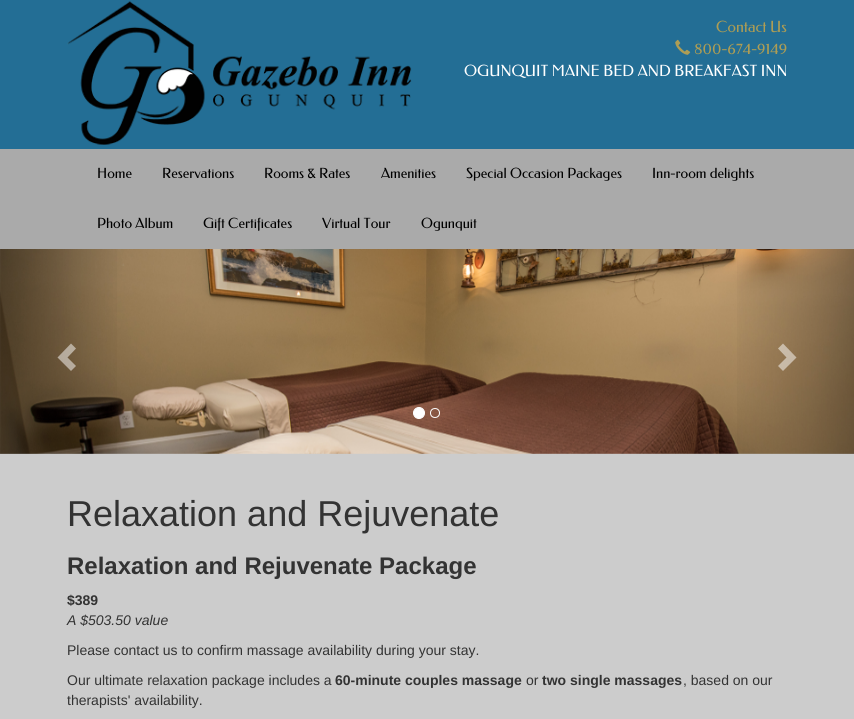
import math
import cairocffi as cairo

surface = cairo.ImageSurface(cairo.FORMAT_RGB24, 854, 719)
cr = cairo.Context(surface)
options = cairo.FontOptions()
options.set_hint_metrics(cairo.HINT_METRICS_OFF)
options.set_hint_style(cairo.HINT_STYLE_NONE)
cr.set_font_options(options)
cr.set_miter_limit(4)


def use_color(code):
    cr.set_source_rgb(*(v / 255 for v in bytes.fromhex(code[-6:])))


def picture(path, x, y, w, h):
    cr.save()
    cr.set_source_surface(cairo.ImageSurface.create_from_png(path), x, y)
    cr.rectangle(x, y, w, h)
    cr.fill()
    cr.restore()


use_color("#cccccc")
cr.paint()
use_color("#236e95")
cr.rectangle(0, 0, 854, 149)
cr.fill()
picture("img1.png", 67, 1, 345, 144)
cr.select_font_face("Federo")
cr.set_font_size(15.4)
use_color("#ae9d54")
cr.move_to(716, 32)
cr.show_text("Contact Us")
picture("img2.png", 675, 39, 16, 16)
cr.move_to(694, 54)
cr.show_text("800-674-9149")
use_color("#ffffff")
cr.move_to(464, 76)
cr.show_text("OGUNQUIT MAINE BED AND BREAKFAST INN")
use_color("#aaaaaa")
cr.rectangle(0, 149, 854, 100)
cr.fill()
cr.set_font_size(14)
use_color("#000000")
cr.move_to(97, 178)
cr.show_text("Home")
cr.move_to(162, 178)
cr.show_text("Reservations")
cr.move_to(264, 178)
cr.show_text("Rooms & Rates")
cr.move_to(381, 178)
cr.show_text("Amenities")
cr.move_to(466, 178)
cr.show_text("Special Occasion Packages")
cr.move_to(652, 178)
cr.show_text("Inn-room delights")
cr.move_to(97, 228)
cr.show_text("Photo Album")
cr.move_to(203, 228)
cr.show_text("Gift Certificates")
cr.move_to(322, 228)
cr.show_text("Virtual Tour")
cr.move_to(421, 228)
cr.show_text("Ogunquit")
picture("img3.png", 0, 249, 854, 205)
gradient = cairo.LinearGradient(0, 352, 128, 352)
gradient.add_color_stop_rgba(0, 0, 0, 0, 0.25)
gradient.add_color_stop_rgba(1, 0, 0, 0, 0)
cr.set_source(gradient)
cr.rectangle(0, 249, 117, 205)
cr.fill()
cr.set_source_rgba(1, 1, 1, 0.5)
cr.new_path()
cr.move_to(76, 348.5)
cr.line_to(67.5, 357.5)
cr.line_to(76, 366)
cr.line_to(71, 371)
cr.line_to(57.5, 357.5)
cr.line_to(71, 343.5)
cr.close_path()
cr.fill()
use_color("#ffffff")
cr.arc(419, 413, 5.5, 0, 2 * math.pi)
cr.fill_preserve()
cr.set_line_width(1)
cr.stroke()
cr.arc(435, 413, 4.5, 0, 2 * math.pi)
cr.stroke()
gradient = cairo.LinearGradient(726, 352, 854, 352)
gradient.add_color_stop_rgba(0, 0, 0, 0, 0)
gradient.add_color_stop_rgba(1, 0, 0, 0, 0.25)
cr.set_source(gradient)
cr.rectangle(737, 249, 117, 205)
cr.fill()
cr.set_source_rgba(1, 1, 1, 0.5)
cr.new_path()
cr.move_to(796.5, 357.5)
cr.line_to(783, 371)
cr.line_to(778, 366)
cr.line_to(786.5, 357.5)
cr.line_to(778, 348.5)
cr.line_to(783, 343.5)
cr.close_path()
cr.fill()
cr.select_font_face("Liberation Sans")
cr.set_font_size(36)
use_color("#333333")
cr.move_to(67, 526)
cr.show_text("Relaxation and Rejuvenate")
cr.select_font_face("Liberation Sans", cairo.FONT_SLANT_NORMAL, cairo.FONT_WEIGHT_BOLD)
cr.set_font_size(24)
cr.move_to(67, 574)
cr.show_text("Relaxation and Rejuvenate Package")
cr.set_font_size(14)
cr.move_to(67, 605)
cr.show_text("$389")
cr.select_font_face("Liberation Sans", cairo.FONT_SLANT_ITALIC)
cr.move_to(67, 625)
cr.show_text("A $503.50 value")
cr.select_font_face("Liberation Sans")
cr.move_to(67, 655)
cr.show_text("Please contact us to confirm massage availability during your stay.")
cr.move_to(67, 685)
cr.show_text("Our ultimate relaxation package includes a")
cr.select_font_face("Liberation Sans", cairo.FONT_SLANT_NORMAL, cairo.FONT_WEIGHT_BOLD)
cr.move_to(335, 685)
cr.show_text("60-minute couples massage")
cr.select_font_face("Liberation Sans")
cr.move_to(526, 685)
cr.show_text("or")
cr.select_font_face("Liberation Sans", cairo.FONT_SLANT_NORMAL, cairo.FONT_WEIGHT_BOLD)
cr.move_to(542, 685)
cr.show_text("two single massages")
cr.select_font_face("Liberation Sans")
cr.move_to(683, 685)
cr.show_text(", based on our")
cr.move_to(67, 705)
cr.show_text("therapists' availability.")
surface.write_to_png("result.png")
